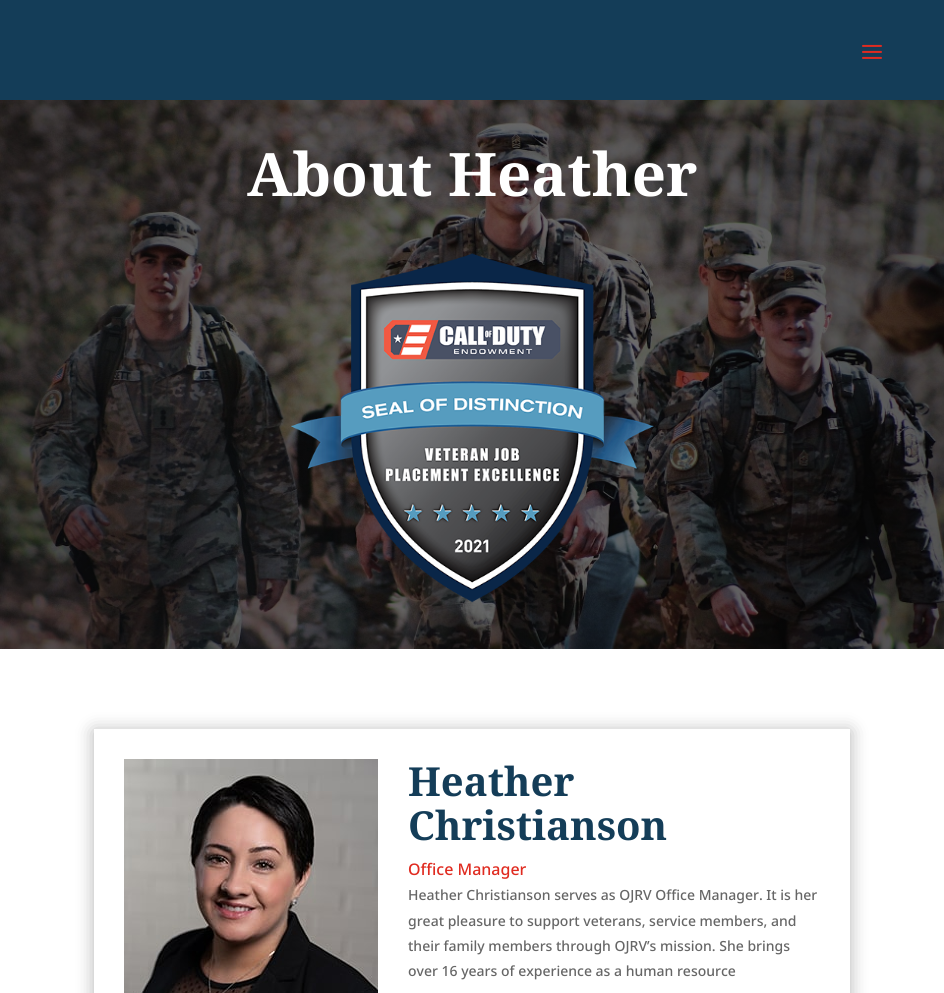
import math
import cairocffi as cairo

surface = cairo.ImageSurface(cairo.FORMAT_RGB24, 944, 993)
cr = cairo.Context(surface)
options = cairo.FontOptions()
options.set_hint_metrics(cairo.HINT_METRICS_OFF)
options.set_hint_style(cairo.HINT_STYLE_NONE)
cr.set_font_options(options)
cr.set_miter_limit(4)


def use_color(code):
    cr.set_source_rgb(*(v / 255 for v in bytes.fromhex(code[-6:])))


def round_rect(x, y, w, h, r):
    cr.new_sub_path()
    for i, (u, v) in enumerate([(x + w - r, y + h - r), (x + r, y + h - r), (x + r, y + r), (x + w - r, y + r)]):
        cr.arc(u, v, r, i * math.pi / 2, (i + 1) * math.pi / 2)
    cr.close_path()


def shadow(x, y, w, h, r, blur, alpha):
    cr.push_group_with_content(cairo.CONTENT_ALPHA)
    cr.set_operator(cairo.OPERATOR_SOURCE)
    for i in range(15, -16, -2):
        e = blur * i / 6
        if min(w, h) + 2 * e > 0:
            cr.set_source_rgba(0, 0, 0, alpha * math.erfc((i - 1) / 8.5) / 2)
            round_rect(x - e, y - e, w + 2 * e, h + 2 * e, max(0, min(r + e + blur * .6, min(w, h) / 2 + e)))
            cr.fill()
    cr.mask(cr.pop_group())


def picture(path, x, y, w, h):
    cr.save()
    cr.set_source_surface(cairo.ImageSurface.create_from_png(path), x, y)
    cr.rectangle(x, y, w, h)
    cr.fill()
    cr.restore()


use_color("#ffffff")
cr.paint()
use_color("#143d58")
cr.rectangle(0, 0, 944, 100)
cr.fill()
picture("img1.png", 862, 44, 20, 15)
picture("img2.png", 0, 100, 944, 549)
cr.select_font_face("Noto Serif", cairo.FONT_SLANT_NORMAL, cairo.FONT_WEIGHT_BOLD)
cr.set_font_size(60)
use_color("#ffffff")
cr.move_to(247, 196)
cr.show_text("About Heather")
picture("img3.png", 291, 253, 363, 350)
cr.save()
cr.set_fill_rule(cairo.FILL_RULE_EVEN_ODD)
cr.new_path()
cr.move_to(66, 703)
cr.line_to(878, 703)
cr.line_to(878, 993)
cr.line_to(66, 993)
cr.close_path()
cr.move_to(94, 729)
cr.line_to(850, 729)
cr.line_to(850, 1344)
cr.line_to(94, 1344)
cr.close_path()
cr.clip()
use_color("#000000")
shadow(94, 731, 756, 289, 0, 9, 0.3)
cr.restore()
picture("img4.png", 124, 759, 254, 234)
cr.set_font_size(40)
use_color("#143d58")
cr.move_to(408, 796)
cr.show_text("Heather")
cr.move_to(408, 840)
cr.show_text("Christianson")
cr.select_font_face("Noto Sans Medium")
cr.set_font_size(16)
use_color("#e02b20")
cr.move_to(408, 875)
cr.show_text("Office Manager")
cr.set_font_size(14)
use_color("#666666")
cr.move_to(408, 900)
cr.show_text("Heather Christianson serves as OJRV Office Manager. It is her")
cr.move_to(408, 926)
cr.show_text("great pleasure to support veterans, service members, and")
cr.move_to(408, 951)
cr.show_text("their family members through OJRV’s mission. She brings")
cr.move_to(408, 976)
cr.show_text("over 16 years of experience as a human resource")
surface.write_to_png("result.png")
